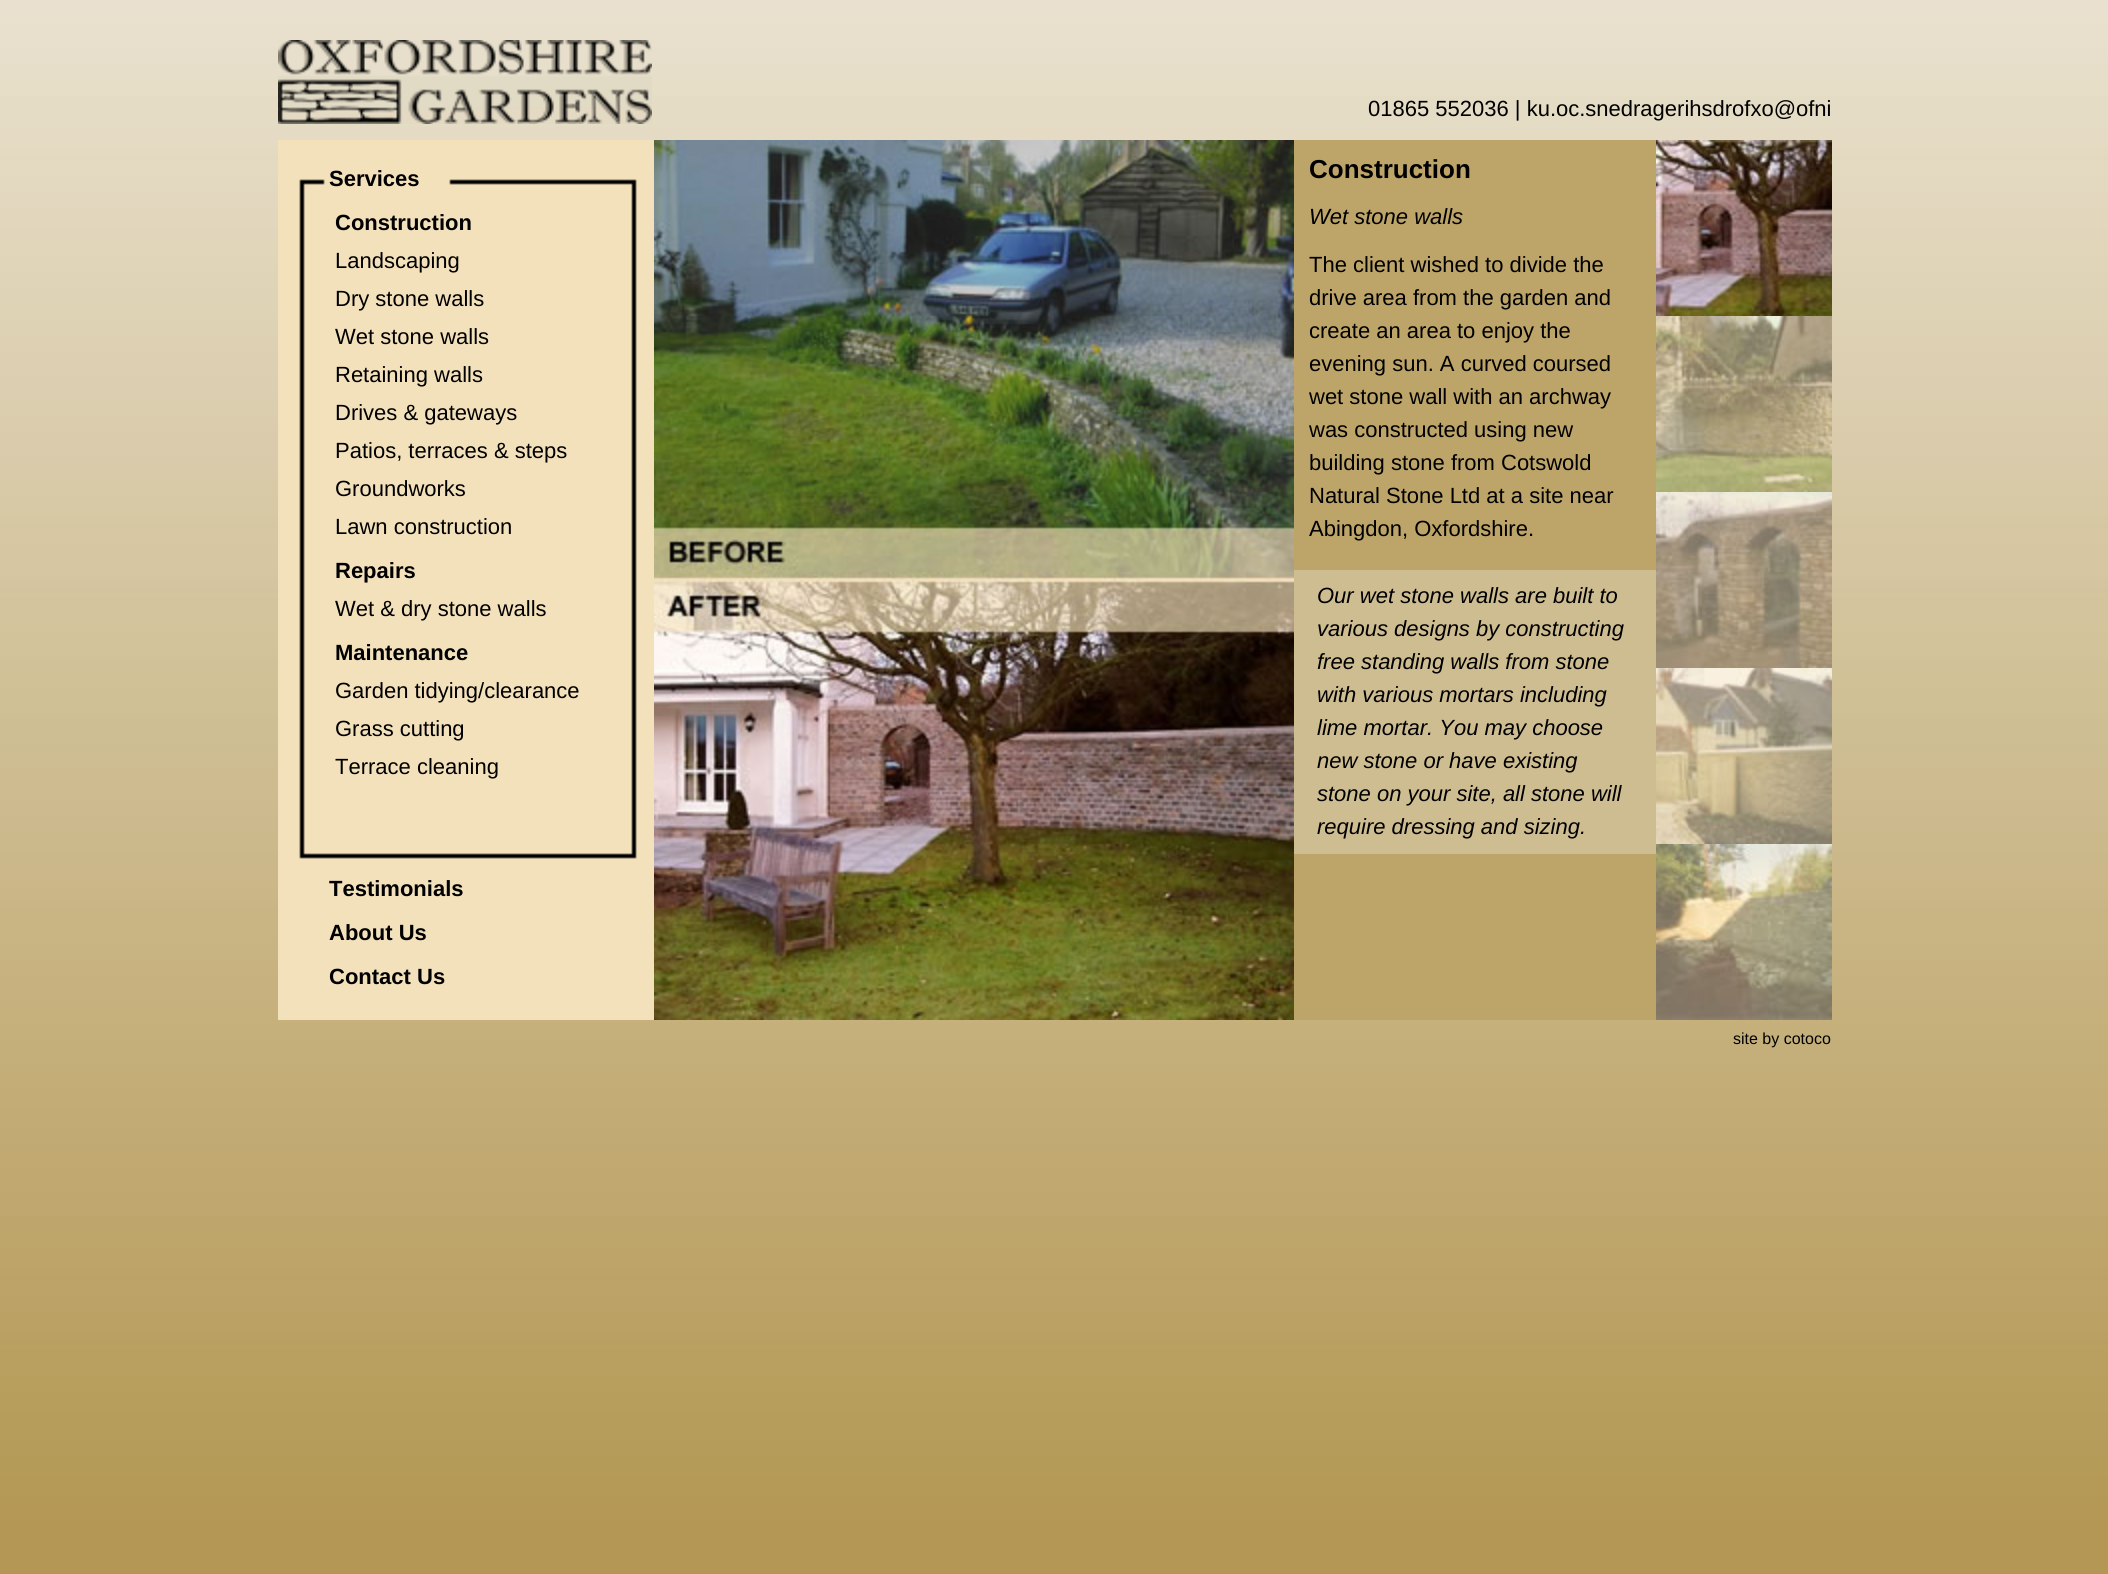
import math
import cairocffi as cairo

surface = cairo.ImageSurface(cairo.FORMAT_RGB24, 2108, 1574)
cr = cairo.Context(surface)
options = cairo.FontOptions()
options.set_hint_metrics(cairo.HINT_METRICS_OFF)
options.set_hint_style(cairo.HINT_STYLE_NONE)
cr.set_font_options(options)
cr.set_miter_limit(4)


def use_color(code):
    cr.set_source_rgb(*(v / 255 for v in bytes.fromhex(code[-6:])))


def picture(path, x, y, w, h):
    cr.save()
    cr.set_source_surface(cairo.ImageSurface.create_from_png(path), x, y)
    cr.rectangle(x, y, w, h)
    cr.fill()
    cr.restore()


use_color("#ffffff")
cr.paint()
picture("img1.png", 0, 0, 2108, 1574)
picture("img2.png", 278, 40, 374, 84)
cr.select_font_face("Liberation Sans")
cr.set_font_size(22)
use_color("#000000")
cr.move_to(1368, 116)
cr.show_text("01865 552036 | ku.oc.snedragerihsdrofxo@ofni")
use_color("#f3e1bb")
cr.rectangle(278, 140, 376, 880)
cr.fill()
picture("img3.png", 299, 179, 338, 680)
cr.select_font_face("Liberation Sans", cairo.FONT_SLANT_NORMAL, cairo.FONT_WEIGHT_BOLD)
use_color("#000000")
cr.move_to(329, 186)
cr.show_text("Services")
cr.move_to(335, 230)
cr.show_text("Construction")
cr.select_font_face("Liberation Sans")
cr.move_to(335, 268)
cr.show_text("Landscaping")
cr.move_to(335, 306)
cr.show_text("Dry stone walls")
cr.move_to(335, 344)
cr.show_text("Wet stone walls")
cr.move_to(335, 382)
cr.show_text("Retaining walls")
cr.move_to(335, 420)
cr.show_text("Drives & gateways")
cr.move_to(335, 458)
cr.show_text("Patios, terraces & steps")
cr.move_to(335, 496)
cr.show_text("Groundworks")
cr.move_to(335, 534)
cr.show_text("Lawn construction")
cr.select_font_face("Liberation Sans", cairo.FONT_SLANT_NORMAL, cairo.FONT_WEIGHT_BOLD)
cr.move_to(335, 578)
cr.show_text("Repairs")
cr.select_font_face("Liberation Sans")
cr.move_to(335, 616)
cr.show_text("Wet & dry stone walls")
cr.select_font_face("Liberation Sans", cairo.FONT_SLANT_NORMAL, cairo.FONT_WEIGHT_BOLD)
cr.move_to(335, 660)
cr.show_text("Maintenance")
cr.select_font_face("Liberation Sans")
cr.move_to(335, 698)
cr.show_text("Garden tidying/clearance")
cr.move_to(335, 736)
cr.show_text("Grass cutting")
cr.move_to(335, 774)
cr.show_text("Terrace cleaning")
cr.select_font_face("Liberation Sans", cairo.FONT_SLANT_NORMAL, cairo.FONT_WEIGHT_BOLD)
cr.move_to(329, 896)
cr.show_text("Testimonials")
cr.move_to(329, 940)
cr.show_text("About Us")
cr.move_to(329, 984)
cr.show_text("Contact Us")
picture("img4.png", 654, 140, 640, 880)
use_color("#bda468")
cr.rectangle(1294, 140, 362, 880)
cr.fill()
cr.set_font_size(26)
use_color("#000000")
cr.move_to(1309, 178)
cr.show_text("Construction")
cr.select_font_face("Liberation Sans", cairo.FONT_SLANT_ITALIC)
cr.set_font_size(22)
cr.move_to(1309, 224)
cr.show_text("Wet stone walls")
cr.select_font_face("Liberation Sans")
cr.move_to(1309, 272)
cr.show_text("The client wished to divide the")
cr.move_to(1309, 305)
cr.show_text("drive area from the garden and")
cr.move_to(1309, 338)
cr.show_text("create an area to enjoy the")
cr.move_to(1309, 371)
cr.show_text("evening sun. A curved coursed")
cr.move_to(1309, 404)
cr.show_text("wet stone wall with an archway")
cr.move_to(1309, 437)
cr.show_text("was constructed using new")
cr.move_to(1309, 470)
cr.show_text("building stone from Cotswold")
cr.move_to(1309, 503)
cr.show_text("Natural Stone Ltd at a site near")
cr.move_to(1309, 536)
cr.show_text("Abingdon, Oxfordshire.")
use_color("#cfbd92")
cr.rectangle(1294, 570, 362, 284)
cr.fill()
cr.select_font_face("Liberation Sans", cairo.FONT_SLANT_ITALIC)
use_color("#000000")
cr.move_to(1317, 603)
cr.show_text("Our wet stone walls are built to")
cr.move_to(1317, 636)
cr.show_text("various designs by constructing")
cr.move_to(1317, 669)
cr.show_text("free standing walls from stone")
cr.move_to(1317, 702)
cr.show_text("with various mortars including")
cr.move_to(1317, 735)
cr.show_text("lime mortar. You may choose")
cr.move_to(1317, 768)
cr.show_text("new stone or have existing")
cr.move_to(1317, 801)
cr.show_text("stone on your site, all stone will")
cr.move_to(1317, 834)
cr.show_text("require dressing and sizing.")
picture("img5.png", 1656, 140, 176, 176)
picture("img6.png", 1656, 316, 176, 176)
picture("img7.png", 1656, 492, 176, 176)
picture("img8.png", 1656, 668, 176, 176)
picture("img9.png", 1656, 844, 176, 176)
cr.select_font_face("Liberation Sans")
cr.set_font_size(16)
cr.move_to(1733, 1044)
cr.show_text("site by cotoco")
surface.write_to_png("result.png")
